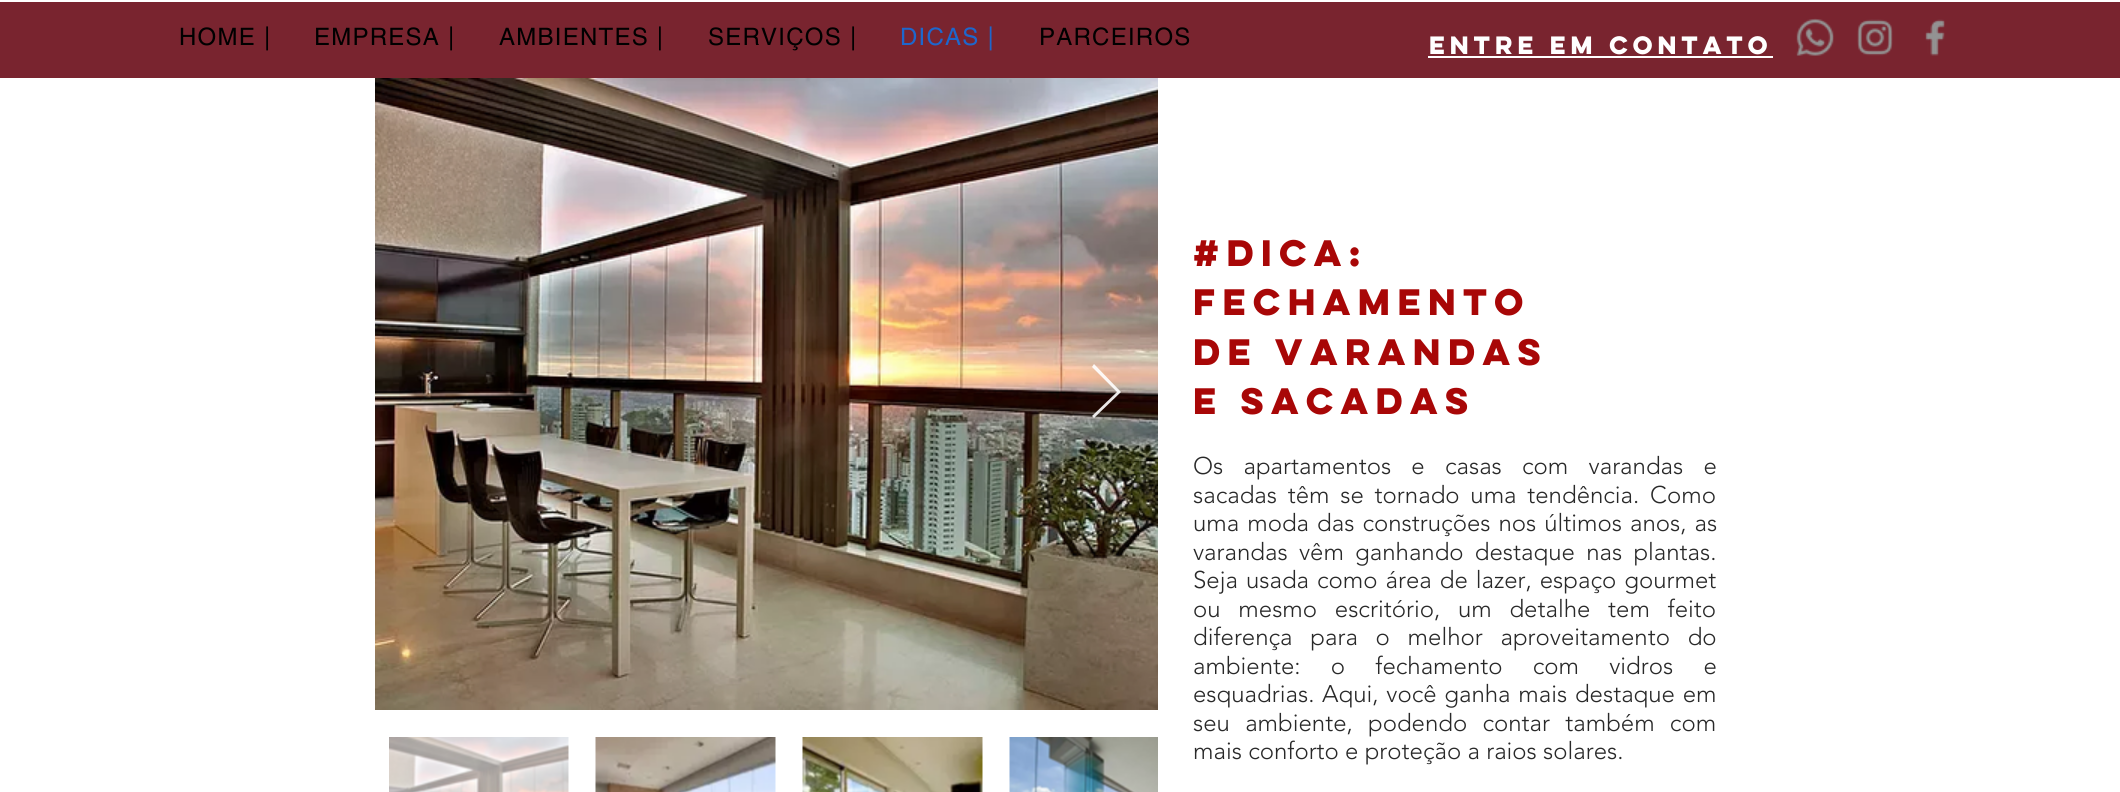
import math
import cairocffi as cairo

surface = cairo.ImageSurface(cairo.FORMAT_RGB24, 2120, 792)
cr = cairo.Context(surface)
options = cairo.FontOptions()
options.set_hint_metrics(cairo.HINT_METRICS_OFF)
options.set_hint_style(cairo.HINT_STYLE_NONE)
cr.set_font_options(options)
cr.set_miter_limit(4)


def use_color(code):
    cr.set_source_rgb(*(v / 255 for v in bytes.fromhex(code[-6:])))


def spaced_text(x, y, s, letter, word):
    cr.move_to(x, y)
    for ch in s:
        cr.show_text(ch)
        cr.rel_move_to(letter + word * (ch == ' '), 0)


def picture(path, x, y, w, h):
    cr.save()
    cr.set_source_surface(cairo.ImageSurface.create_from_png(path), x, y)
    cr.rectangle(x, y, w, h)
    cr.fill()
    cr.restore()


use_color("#ffffff")
cr.paint()
use_color("#79242f")
cr.rectangle(0, 2, 2120, 76)
cr.fill()
cr.select_font_face("helvetica")
cr.set_font_size(24)
use_color("#000000")
spaced_text(179, 45, "HOME |", 1.25, 0)
spaced_text(314, 45, "EMPRESA |", 1.25, 0)
spaced_text(499, 45, "AMBIENTES |", 1.25, 0)
spaced_text(708, 45, "SERVIÇOS |", 1.25, 0)
use_color("#1d67cd")
spaced_text(900, 45, "DICAS |", 1.25, 0)
use_color("#000000")
spaced_text(1039, 45, "PARCEIROS", 1.25, 0)
cr.select_font_face("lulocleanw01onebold", cairo.FONT_SLANT_NORMAL, cairo.FONT_WEIGHT_BOLD)
cr.set_font_size(22.5)
use_color("#ffffff")
cr.move_to(1429, 54)
cr.show_text("eNTRE EM CONTATO")
cr.rectangle(1428, 56, 345, 2)
cr.fill()
picture("img1.png", 1796, 18, 38, 38)
picture("img2.png", 1857, 19, 36, 37)
picture("img3.png", 1925, 19, 20, 37)
picture("img4.png", 375, 78, 783, 632)
cr.set_source_rgba(1, 1, 1, 0.9)
cr.new_path()
cr.move_to(1092, 367)
cr.line_to(1094, 364)
cr.line_to(1121, 392)
cr.line_to(1094, 418)
cr.line_to(1092, 416)
cr.line_to(1117, 392)
cr.close_path()
cr.fill()
picture("img5.png", 389, 737, 180, 55)
picture("img6.png", 595, 737, 181, 55)
picture("img7.png", 802, 737, 181, 55)
picture("img8.png", 1009, 737, 149, 55)
cr.set_font_size(33)
use_color("#a80707")
cr.move_to(1193, 266)
cr.show_text("#DIca:")
cr.move_to(1193, 315)
cr.show_text("FECHAMENTO")
cr.move_to(1193, 365)
cr.show_text("DE VARANDAS")
cr.move_to(1193, 414)
cr.show_text("E SACADAS")
cr.select_font_face("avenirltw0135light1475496 Light")
cr.set_font_size(24)
use_color("#292929")
spaced_text(1193, 474, "Os apartamentos e casas com varandas e", 0, 14)
spaced_text(1193, 503, "sacadas têm se tornado uma tendência. Como", 0, 4.5)
spaced_text(1193, 531, "uma moda das construções nos últimos anos, as", 0, 1.75)
spaced_text(1193, 560, "varandas vêm ganhando destaque nas plantas.", 0, 5)
spaced_text(1193, 588, "Seja usada como área de lazer, espaço gourmet", 0, 1.75)
spaced_text(1193, 617, "ou mesmo escritório, um detalhe tem feito", 0, 11.5)
spaced_text(1193, 645, "diferença para o melhor aproveitamento do", 0, 11.5)
spaced_text(1193, 674, "ambiente: o fechamento com vidros e", 0, 24)
spaced_text(1193, 702, "esquadrias. Aqui, você ganha mais destaque em", 0, 1.5)
spaced_text(1193, 731, "seu ambiente, podendo contar também com", 0, 9)
cr.move_to(1193, 759)
cr.show_text("mais conforto e proteção a raios solares.")
surface.write_to_png("result.png")
